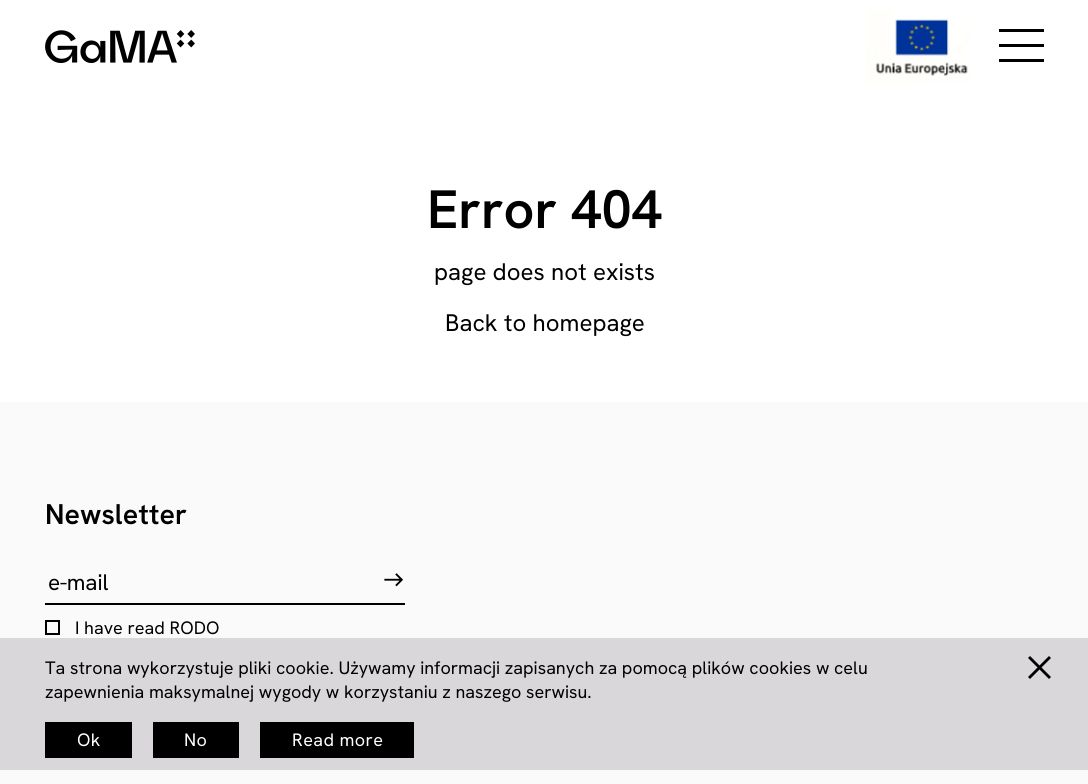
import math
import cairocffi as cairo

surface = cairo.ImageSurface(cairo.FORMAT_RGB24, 1088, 784)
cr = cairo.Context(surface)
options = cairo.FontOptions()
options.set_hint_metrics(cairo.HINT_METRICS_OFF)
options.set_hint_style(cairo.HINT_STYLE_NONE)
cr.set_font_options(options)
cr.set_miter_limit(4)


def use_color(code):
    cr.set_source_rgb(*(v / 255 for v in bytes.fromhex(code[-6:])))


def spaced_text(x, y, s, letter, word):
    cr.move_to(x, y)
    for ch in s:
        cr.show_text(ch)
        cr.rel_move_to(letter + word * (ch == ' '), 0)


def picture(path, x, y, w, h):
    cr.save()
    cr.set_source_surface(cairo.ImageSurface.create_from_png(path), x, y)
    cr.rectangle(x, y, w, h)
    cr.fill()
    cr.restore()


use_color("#ffffff")
cr.paint()
picture("img1.png", 45, 30, 150, 33)
picture("img2.png", 866, 10, 103, 74)
use_color("#000000")
cr.rectangle(999, 44, 45, 3)
cr.fill()
cr.rectangle(999, 29, 45, 3)
cr.fill()
cr.rectangle(999, 59, 45, 3)
cr.fill()
cr.select_font_face("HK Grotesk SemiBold")
cr.set_font_size(54)
cr.move_to(427, 228)
cr.show_text("Error 404")
cr.select_font_face("HK Grotesk")
cr.set_font_size(24)
cr.move_to(434, 280)
cr.show_text("page does not exists")
cr.move_to(445, 331)
cr.show_text("Back to homepage")
use_color("#fafafa")
cr.rectangle(0, 402, 1088, 382)
cr.fill()
cr.select_font_face("HK Grotesk SemiBold")
cr.set_font_size(28.5)
use_color("#000000")
cr.move_to(45, 524)
cr.show_text("Newsletter")
cr.rectangle(45, 603, 360, 2)
cr.fill()
cr.select_font_face("HK Grotesk")
cr.set_font_size(22.5)
cr.move_to(48, 590)
cr.show_text("e-mail")
picture("img3.png", 384, 573, 19, 14)
cr.rectangle(46, 621, 13, 13)
cr.stroke()
cr.set_font_size(18)
cr.move_to(75, 634)
cr.show_text("I have read RODO")
use_color("#dad7db")
cr.rectangle(0, 638, 1088, 132)
cr.fill()
use_color("#000000")
cr.move_to(45, 674)
cr.show_text("Ta strona wykorzystuje pliki cookie. Używamy informacji zapisanych za pomocą plików cookies w celu")
cr.move_to(45, 698)
cr.show_text("zapewnienia maksymalnej wygody w korzystaniu z naszego serwisu.")
cr.new_path()
cr.move_to(1049, 656)
cr.line_to(1051, 658)
cr.line_to(1030, 679)
cr.line_to(1028, 677)
cr.close_path()
cr.fill()
cr.new_path()
cr.move_to(1028, 658)
cr.line_to(1030, 656)
cr.line_to(1051, 677)
cr.line_to(1049, 679)
cr.close_path()
cr.fill()
cr.rectangle(45, 722, 87, 36)
cr.fill()
use_color("#ffffff")
spaced_text(77, 746, "Ok", 0.4, 0)
use_color("#000000")
cr.rectangle(153, 722, 86, 36)
cr.fill()
use_color("#ffffff")
spaced_text(184, 746, "No", 0.4, 0)
use_color("#000000")
cr.rectangle(260, 722, 154, 36)
cr.fill()
use_color("#ffffff")
spaced_text(292, 746, "Read more", 0.4, 0)
surface.write_to_png("result.png")
